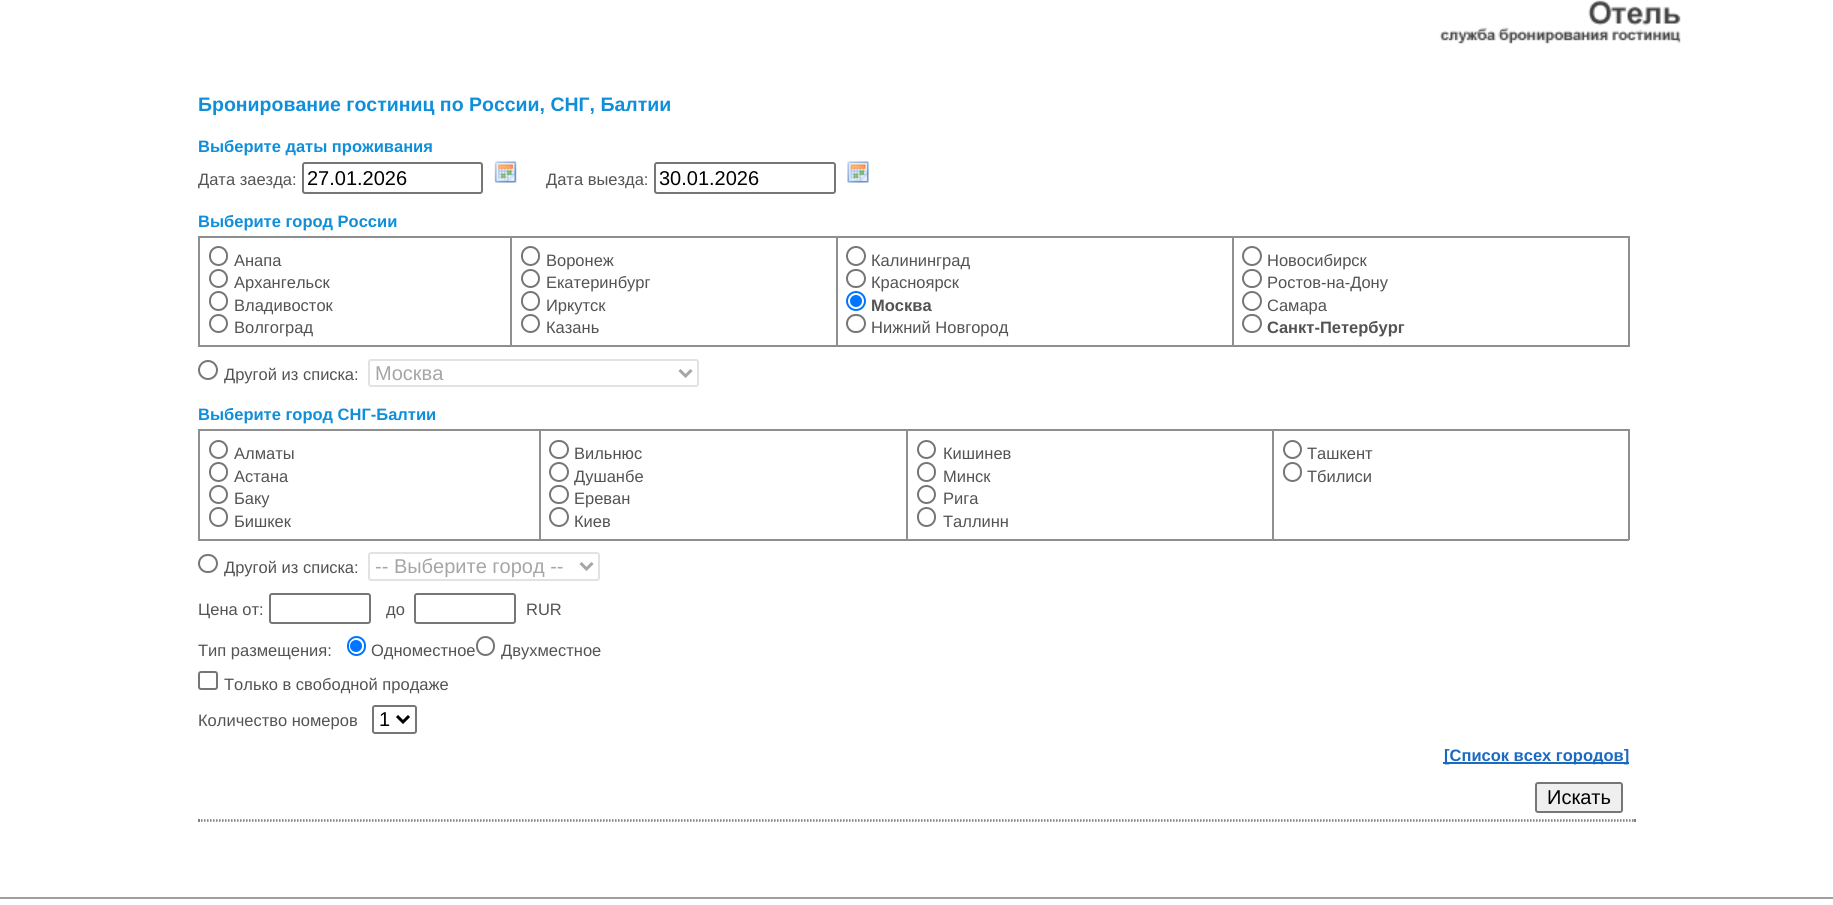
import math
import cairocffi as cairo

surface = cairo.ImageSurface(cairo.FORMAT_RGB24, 1833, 905)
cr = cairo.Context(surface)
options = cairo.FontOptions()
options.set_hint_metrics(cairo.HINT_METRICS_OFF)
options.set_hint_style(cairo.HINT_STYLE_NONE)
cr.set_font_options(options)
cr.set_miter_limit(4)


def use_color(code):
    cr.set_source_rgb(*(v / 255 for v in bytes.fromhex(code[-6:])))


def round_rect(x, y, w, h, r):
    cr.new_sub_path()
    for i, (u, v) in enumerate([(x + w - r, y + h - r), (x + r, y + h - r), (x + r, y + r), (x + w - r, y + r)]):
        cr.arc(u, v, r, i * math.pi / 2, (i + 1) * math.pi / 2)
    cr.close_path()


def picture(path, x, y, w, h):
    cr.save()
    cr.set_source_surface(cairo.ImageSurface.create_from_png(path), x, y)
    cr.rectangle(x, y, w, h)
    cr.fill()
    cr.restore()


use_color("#ffffff")
cr.paint()
picture("img1.png", 1439, 0, 242, 44)
cr.select_font_face("Liberation Sans", cairo.FONT_SLANT_NORMAL, cairo.FONT_WEIGHT_BOLD)
cr.set_font_size(19.5)
use_color("#0f8eda")
cr.move_to(198, 111)
cr.show_text("Бронирование гостиниц по России, СНГ, Балтии")
cr.set_font_size(16.5)
cr.move_to(198, 152)
cr.show_text("Выберите даты проживания")
cr.select_font_face("Liberation Sans")
use_color("#525353")
cr.move_to(198, 185)
cr.show_text("Дата заезда:")
round_rect(303, 163, 179, 30, 2)
use_color("#767676")
cr.stroke()
cr.set_font_size(20)
use_color("#000000")
cr.move_to(307, 185)
cr.show_text("27.01.2026")
picture("img2.png", 494, 161, 23, 22)
cr.set_font_size(16.5)
use_color("#525353")
cr.move_to(546, 185)
cr.show_text("Дата выезда:")
round_rect(655, 163, 180, 30, 2)
use_color("#767676")
cr.stroke()
cr.set_font_size(20)
use_color("#000000")
cr.move_to(659, 185)
cr.show_text("30.01.2026")
picture("img3.png", 847, 161, 22, 22)
cr.select_font_face("Liberation Sans", cairo.FONT_SLANT_NORMAL, cairo.FONT_WEIGHT_BOLD)
cr.set_font_size(16.5)
use_color("#0f8eda")
cr.move_to(198, 227)
cr.show_text("Выберите город России")
use_color("#8f8f8f")
cr.rectangle(1232, 236, 397, 2)
cr.fill()
cr.rectangle(1628, 236, 2, 111)
cr.fill()
cr.rectangle(1232, 345, 397, 2)
cr.fill()
cr.rectangle(1232, 236, 2, 111)
cr.fill()
cr.rectangle(836, 236, 397, 2)
cr.fill()
cr.rectangle(836, 345, 397, 2)
cr.fill()
cr.rectangle(836, 236, 2, 111)
cr.fill()
cr.rectangle(510, 236, 327, 2)
cr.fill()
cr.rectangle(510, 345, 327, 2)
cr.fill()
cr.rectangle(510, 236, 2, 111)
cr.fill()
cr.rectangle(198, 236, 314, 2)
cr.fill()
cr.rectangle(198, 345, 314, 2)
cr.fill()
cr.rectangle(198, 236, 2, 111)
cr.fill()
round_rect(210, 247, 17, 18, 8.5)
use_color("#767676")
cr.stroke()
cr.select_font_face("Liberation Sans")
use_color("#525353")
cr.move_to(234, 266)
cr.show_text("Анапа")
cr.new_path()
cr.arc(218.5, 278.5, 8.5, 0, 2 * math.pi)
use_color("#767676")
cr.stroke()
use_color("#525353")
cr.move_to(234, 288)
cr.show_text("Архангельск")
round_rect(210, 292, 17, 18, 8.5)
use_color("#767676")
cr.stroke()
use_color("#525353")
cr.move_to(234, 311)
cr.show_text("Владивосток")
cr.new_path()
cr.arc(218.5, 323.5, 8.5, 0, 2 * math.pi)
use_color("#767676")
cr.stroke()
use_color("#525353")
cr.move_to(234, 333)
cr.show_text("Волгоград")
round_rect(522, 247, 17, 18, 8.5)
use_color("#767676")
cr.stroke()
use_color("#525353")
cr.move_to(546, 266)
cr.show_text("Воронеж")
cr.new_path()
cr.arc(530.5, 278.5, 8.5, 0, 2 * math.pi)
use_color("#767676")
cr.stroke()
use_color("#525353")
cr.move_to(546, 288)
cr.show_text("Екатеринбург")
round_rect(522, 292, 17, 18, 8.5)
use_color("#767676")
cr.stroke()
use_color("#525353")
cr.move_to(546, 311)
cr.show_text("Иркутск")
cr.new_path()
cr.arc(530.5, 323.5, 8.5, 0, 2 * math.pi)
use_color("#767676")
cr.stroke()
use_color("#525353")
cr.move_to(546, 333)
cr.show_text("Казань")
cr.new_path()
cr.arc(856, 256, 9, 0, 2 * math.pi)
use_color("#767676")
cr.stroke()
use_color("#525353")
cr.move_to(871, 266)
cr.show_text("Калининград")
round_rect(847, 270, 18, 17, 8.5)
use_color("#767676")
cr.stroke()
use_color("#525353")
cr.move_to(871, 288)
cr.show_text("Красноярск")
cr.new_path()
cr.arc(856, 301, 9, 0, 2 * math.pi)
use_color("#0075ff")
cr.stroke()
cr.arc(856, 301, 6, 0, 2 * math.pi)
cr.fill()
cr.select_font_face("Liberation Sans", cairo.FONT_SLANT_NORMAL, cairo.FONT_WEIGHT_BOLD)
use_color("#525353")
cr.move_to(871, 311)
cr.show_text("Москва")
round_rect(847, 315, 18, 17, 8.5)
use_color("#767676")
cr.stroke()
cr.select_font_face("Liberation Sans")
use_color("#525353")
cr.move_to(871, 333)
cr.show_text("Нижний Новгород")
cr.new_path()
cr.arc(1252, 256, 9, 0, 2 * math.pi)
use_color("#767676")
cr.stroke()
use_color("#525353")
cr.move_to(1267, 266)
cr.show_text("Новосибирск")
round_rect(1243, 270, 18, 17, 8.5)
use_color("#767676")
cr.stroke()
use_color("#525353")
cr.move_to(1267, 288)
cr.show_text("Ростов-на-Дону")
cr.new_path()
cr.arc(1252, 301, 9, 0, 2 * math.pi)
use_color("#767676")
cr.stroke()
use_color("#525353")
cr.move_to(1267, 311)
cr.show_text("Самара")
round_rect(1243, 315, 18, 17, 8.5)
use_color("#767676")
cr.stroke()
cr.select_font_face("Liberation Sans", cairo.FONT_SLANT_NORMAL, cairo.FONT_WEIGHT_BOLD)
use_color("#525353")
cr.move_to(1267, 333)
cr.show_text("Санкт-Петербург")
cr.new_path()
cr.arc(208, 370, 9, 0, 2 * math.pi)
use_color("#767676")
cr.stroke()
cr.select_font_face("Liberation Sans")
use_color("#525353")
cr.move_to(224, 380)
cr.show_text("Другой из списка:")
round_rect(369, 360, 329, 26, 2)
use_color("#e2e2e2")
cr.stroke()
cr.new_path()
cr.move_to(679.5, 370)
cr.line_to(685.5, 376)
cr.line_to(691.5, 370)
use_color("#a6a6a6")
cr.set_line_width(3)
cr.stroke()
cr.set_font_size(20)
cr.move_to(375, 380)
cr.show_text("Москва")
cr.select_font_face("Liberation Sans", cairo.FONT_SLANT_NORMAL, cairo.FONT_WEIGHT_BOLD)
cr.set_font_size(16.5)
use_color("#0f8eda")
cr.move_to(198, 420)
cr.show_text("Выберите город СНГ-Балтии")
use_color("#8f8f8f")
cr.rectangle(1272, 429, 357, 2)
cr.fill()
cr.rectangle(1628, 429, 2, 111)
cr.fill()
cr.rectangle(1272, 539, 357, 2)
cr.fill()
cr.rectangle(1272, 429, 2, 111)
cr.fill()
cr.rectangle(906, 429, 368, 2)
cr.fill()
cr.rectangle(906, 539, 368, 2)
cr.fill()
cr.rectangle(906, 429, 2, 111)
cr.fill()
cr.rectangle(539, 429, 369, 2)
cr.fill()
cr.rectangle(539, 539, 369, 2)
cr.fill()
cr.rectangle(539, 429, 2, 111)
cr.fill()
cr.rectangle(198, 429, 342, 2)
cr.fill()
cr.rectangle(198, 539, 342, 2)
cr.fill()
cr.rectangle(198, 429, 2, 111)
cr.fill()
cr.arc(218.5, 449.5, 8.5, 0, 2 * math.pi)
use_color("#767676")
cr.set_line_width(2)
cr.stroke()
cr.select_font_face("Liberation Sans")
use_color("#525353")
cr.move_to(234, 459)
cr.show_text("Алматы")
round_rect(210, 463, 17, 18, 8.5)
use_color("#767676")
cr.stroke()
use_color("#525353")
cr.move_to(234, 482)
cr.show_text("Астана")
cr.new_path()
cr.arc(218.5, 494.5, 8.5, 0, 2 * math.pi)
use_color("#767676")
cr.stroke()
use_color("#525353")
cr.move_to(234, 504)
cr.show_text("Баку")
round_rect(210, 508, 17, 18, 8.5)
use_color("#767676")
cr.stroke()
use_color("#525353")
cr.move_to(234, 527)
cr.show_text("Бишкек")
round_rect(550, 441, 18, 17, 8.5)
use_color("#767676")
cr.stroke()
use_color("#525353")
cr.move_to(574, 459)
cr.show_text("Вильнюс")
cr.new_path()
cr.arc(559, 472, 9, 0, 2 * math.pi)
use_color("#767676")
cr.stroke()
use_color("#525353")
cr.move_to(574, 482)
cr.show_text("Душанбе")
round_rect(550, 486, 18, 17, 8.5)
use_color("#767676")
cr.stroke()
use_color("#525353")
cr.move_to(574, 504)
cr.show_text("Ереван")
cr.new_path()
cr.arc(559, 517, 9, 0, 2 * math.pi)
use_color("#767676")
cr.stroke()
use_color("#525353")
cr.move_to(574, 527)
cr.show_text("Киев")
cr.new_path()
cr.arc(926.5, 449.5, 8.5, 0, 2 * math.pi)
use_color("#767676")
cr.stroke()
use_color("#525353")
cr.move_to(943, 459)
cr.show_text("Кишинев")
round_rect(918, 463, 17, 18, 8.5)
use_color("#767676")
cr.stroke()
use_color("#525353")
cr.move_to(943, 482)
cr.show_text("Минск")
cr.new_path()
cr.arc(926.5, 494.5, 8.5, 0, 2 * math.pi)
use_color("#767676")
cr.stroke()
use_color("#525353")
cr.move_to(943, 504)
cr.show_text("Рига")
round_rect(918, 508, 17, 18, 8.5)
use_color("#767676")
cr.stroke()
use_color("#525353")
cr.move_to(943, 527)
cr.show_text("Таллинн")
cr.new_path()
cr.arc(1292.5, 449.5, 8.5, 0, 2 * math.pi)
use_color("#767676")
cr.stroke()
use_color("#525353")
cr.move_to(1307, 459)
cr.show_text("Ташкент")
round_rect(1284, 463, 17, 18, 8.5)
use_color("#767676")
cr.stroke()
use_color("#525353")
cr.move_to(1307, 482)
cr.show_text("Тбилиси")
round_rect(199, 555, 18, 17, 8.5)
use_color("#767676")
cr.stroke()
use_color("#525353")
cr.move_to(224, 573)
cr.show_text("Другой из списка:")
round_rect(369, 553, 230, 27, 2)
use_color("#e2e2e2")
cr.stroke()
cr.new_path()
cr.move_to(580.5, 563)
cr.line_to(586.5, 569)
cr.line_to(592.5, 563)
use_color("#a6a6a6")
cr.set_line_width(3)
cr.stroke()
cr.set_font_size(20)
cr.move_to(375, 573)
cr.show_text("-- Выберите город --")
cr.set_font_size(16.5)
use_color("#525353")
cr.move_to(198, 615)
cr.show_text("Цена от:")
round_rect(270, 594, 100, 29, 2)
use_color("#767676")
cr.set_line_width(2)
cr.stroke()
use_color("#525353")
cr.move_to(386, 615)
cr.show_text("до")
round_rect(415, 594, 100, 29, 2)
use_color("#767676")
cr.stroke()
use_color("#525353")
cr.move_to(526, 615)
cr.show_text("RUR")
cr.move_to(198, 656)
cr.show_text("Тип размещения:")
round_rect(348, 637, 17, 18, 8.5)
use_color("#0075ff")
cr.stroke()
cr.arc(356, 646, 6, 0, 2 * math.pi)
cr.fill()
use_color("#525353")
cr.move_to(371, 656)
cr.show_text("Одноместное")
round_rect(477, 637, 17, 18, 8.5)
use_color("#767676")
cr.stroke()
use_color("#525353")
cr.move_to(501, 656)
cr.show_text("Двухместное")
round_rect(199, 672, 18, 17, 2)
use_color("#767676")
cr.stroke()
use_color("#525353")
cr.move_to(224, 690)
cr.show_text("Только в свободной продаже")
cr.move_to(198, 726)
cr.show_text("Количество номеров")
round_rect(373, 706, 43, 27, 2)
use_color("#767676")
cr.stroke()
cr.new_path()
cr.move_to(397, 716)
cr.line_to(403, 722)
cr.line_to(409, 716)
use_color("#000000")
cr.set_line_width(3)
cr.stroke()
cr.set_font_size(20)
cr.move_to(379, 726)
cr.show_text("1")
use_color("#1c6ac0")
cr.rectangle(1443, 762, 186, 2)
cr.fill()
cr.select_font_face("Liberation Sans", cairo.FONT_SLANT_NORMAL, cairo.FONT_WEIGHT_BOLD)
cr.set_font_size(16.5)
cr.move_to(1444, 761)
cr.show_text("[Список всех городов]")
use_color("#efefef")
round_rect(1536, 783, 86, 29, 2)
cr.fill_preserve()
use_color("#767676")
cr.set_line_width(2)
cr.stroke()
cr.select_font_face("Liberation Sans")
cr.set_font_size(20)
use_color("#000000")
cr.move_to(1547, 804)
cr.show_text("Искать")
cr.new_path()
cr.move_to(198, 820)
cr.line_to(1635, 820)
use_color("#808080")
cr.set_line_width(1.5)
cr.set_dash([1.5, 1.5])
cr.stroke()
cr.rectangle(1634, 819, 2, 3)
cr.fill()
cr.new_path()
cr.move_to(198, 821)
cr.line_to(1635, 821)
cr.stroke()
cr.rectangle(198, 819, 2, 3)
cr.fill()
use_color("#9f9f9f")
cr.rectangle(0, 897, 1833, 2)
cr.fill()
surface.write_to_png("result.png")
